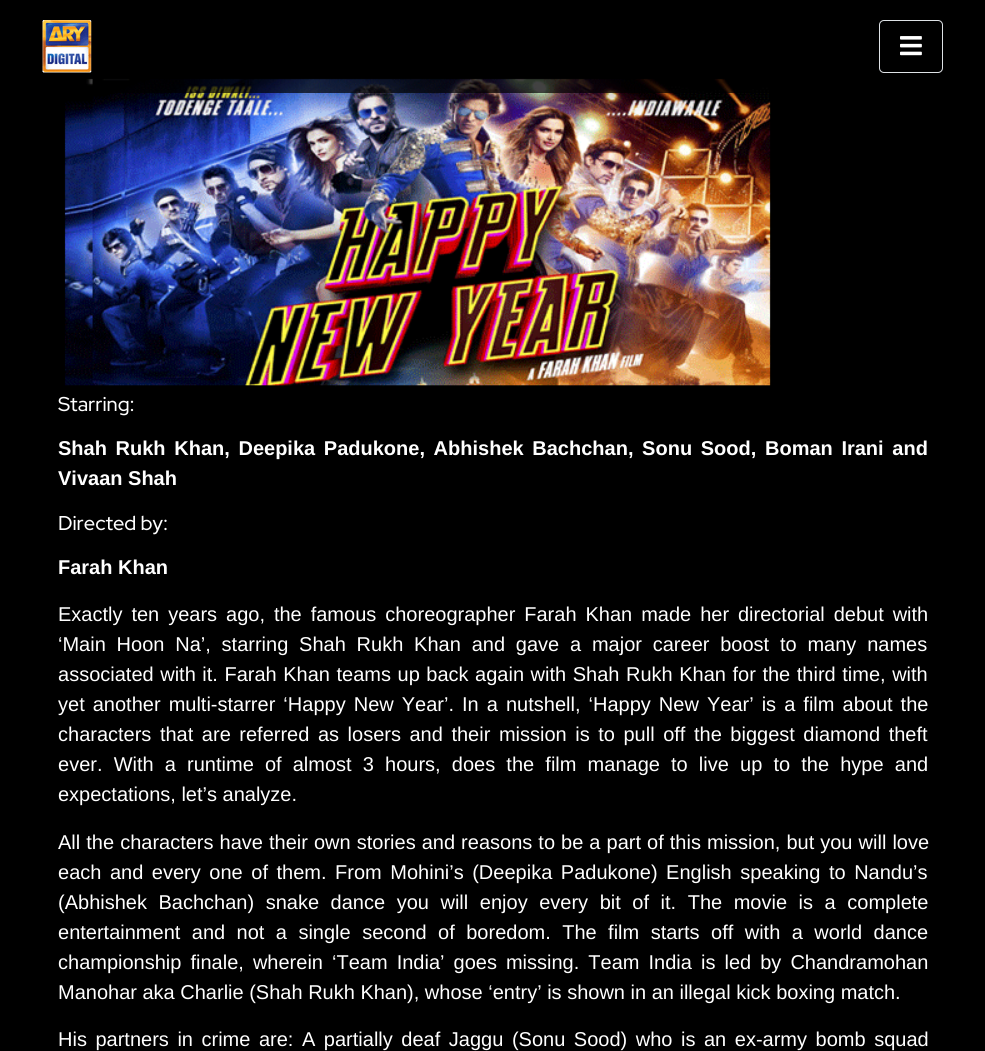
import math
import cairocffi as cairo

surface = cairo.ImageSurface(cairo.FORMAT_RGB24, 985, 1051)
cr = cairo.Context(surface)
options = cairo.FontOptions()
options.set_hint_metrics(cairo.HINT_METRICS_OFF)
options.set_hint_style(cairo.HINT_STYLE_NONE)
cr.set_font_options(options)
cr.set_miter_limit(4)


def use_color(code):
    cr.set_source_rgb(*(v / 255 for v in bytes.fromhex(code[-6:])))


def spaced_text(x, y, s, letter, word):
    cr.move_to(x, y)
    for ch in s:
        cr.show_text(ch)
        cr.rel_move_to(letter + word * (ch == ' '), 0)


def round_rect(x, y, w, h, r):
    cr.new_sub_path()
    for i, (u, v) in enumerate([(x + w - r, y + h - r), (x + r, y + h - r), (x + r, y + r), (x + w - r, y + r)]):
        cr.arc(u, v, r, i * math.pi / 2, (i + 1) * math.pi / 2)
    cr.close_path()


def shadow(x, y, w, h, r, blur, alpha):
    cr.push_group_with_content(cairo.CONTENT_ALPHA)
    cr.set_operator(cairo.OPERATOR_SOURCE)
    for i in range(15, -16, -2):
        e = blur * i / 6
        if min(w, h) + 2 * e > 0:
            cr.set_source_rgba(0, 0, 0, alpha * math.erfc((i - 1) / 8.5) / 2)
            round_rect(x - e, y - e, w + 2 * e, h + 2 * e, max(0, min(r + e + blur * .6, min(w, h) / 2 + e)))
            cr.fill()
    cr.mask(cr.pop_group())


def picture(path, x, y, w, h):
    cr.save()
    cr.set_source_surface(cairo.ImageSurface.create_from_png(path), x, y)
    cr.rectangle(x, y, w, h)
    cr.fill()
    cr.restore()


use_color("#000000")
cr.paint()
picture("img3.png", 64, 78, 707, 309)
cr.save()
cr.set_fill_rule(cairo.FILL_RULE_EVEN_ODD)
cr.new_path()
cr.move_to(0, 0)
cr.line_to(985, 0)
cr.line_to(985, 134)
cr.line_to(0, 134)
cr.close_path()
cr.move_to(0, 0)
cr.line_to(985, 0)
cr.line_to(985, 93)
cr.line_to(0, 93)
cr.close_path()
cr.clip()
shadow(0, 10, 985, 93, 0, 10, 0.15)
cr.restore()
cr.set_source_rgba(0, 0, 0, 0.74)
cr.rectangle(86, 78, 683, 15)
cr.fill()
picture("img1.png", 42, 20, 50, 53)
round_rect(879.5, 20.5, 63, 52, 4.5)
use_color("#dee2e6")
cr.set_line_width(1)
cr.stroke()
picture("img2.png", 900, 36, 22, 20)
cr.select_font_face("Red Hat Display Medium")
cr.set_font_size(20)
use_color("#ffffff")
cr.move_to(58, 411)
cr.show_text("Starring:")
cr.select_font_face("Liberation Sans", cairo.FONT_SLANT_NORMAL, cairo.FONT_WEIGHT_BOLD)
spaced_text(58, 455, "Shah Rukh Khan, Deepika Padukone, Abhishek Bachchan, Sonu Sood, Boman Irani and", 0, 3.1)
cr.move_to(58, 485)
cr.show_text("Vivaan Shah")
cr.select_font_face("Red Hat Display Medium")
cr.move_to(58, 530)
cr.show_text("Directed by:")
cr.select_font_face("Liberation Sans", cairo.FONT_SLANT_NORMAL, cairo.FONT_WEIGHT_BOLD)
cr.move_to(58, 574)
cr.show_text("Farah Khan")
cr.select_font_face("Liberation Sans")
spaced_text(58, 621, "Exactly ten years ago, the famous choreographer Farah Khan made her directorial debut with", 0, 3.4)
spaced_text(58, 651, "‘Main Hoon Na’, starring Shah Rukh Khan and gave a major career boost to many names", 0, 5.25)
spaced_text(58, 681, "associated with it. Farah Khan teams up back again with Shah Rukh Khan for the third time, with", 0, 1)
spaced_text(58, 711, "yet another multi-starrer ‘Happy New Year’. In a nutshell, ‘Happy New Year’ is a film about the", 0, 2.5)
spaced_text(58, 741, "characters that are referred as losers and their mission is to pull off the biggest diamond theft", 0, 3)
spaced_text(58, 771, "ever. With a runtime of almost 3 hours, does the film manage to live up to the hype and", 0, 5.6)
cr.move_to(58, 801)
cr.show_text("expectations, let’s analyze.")
spaced_text(58, 849, "All the characters have their own stories and reasons to be a part of this mission, but you will love", 0, 0.5)
spaced_text(58, 879, "each and every one of them. From Mohini’s (Deepika Padukone) English speaking to Nandu’s", 0, 3)
spaced_text(58, 909, "(Abhishek Bachchan) snake dance you will enjoy every bit of it. The movie is a complete", 0, 6)
spaced_text(58, 939, "entertainment and not a single second of boredom. The film starts off with a world dance", 0, 5.9)
spaced_text(58, 969, "championship finale, wherein ‘Team India’ goes missing. Team India is led by Chandramohan", 0, 3.5)
cr.move_to(58, 999)
cr.show_text("Manohar aka Charlie (Shah Rukh Khan), whose ‘entry’ is shown in an illegal kick boxing match.")
spaced_text(58, 1046, "His partners in crime are: A partially deaf Jaggu (Sonu Sood) who is an ex-army bomb squad", 0, 3)
surface.write_to_png("result.png")
